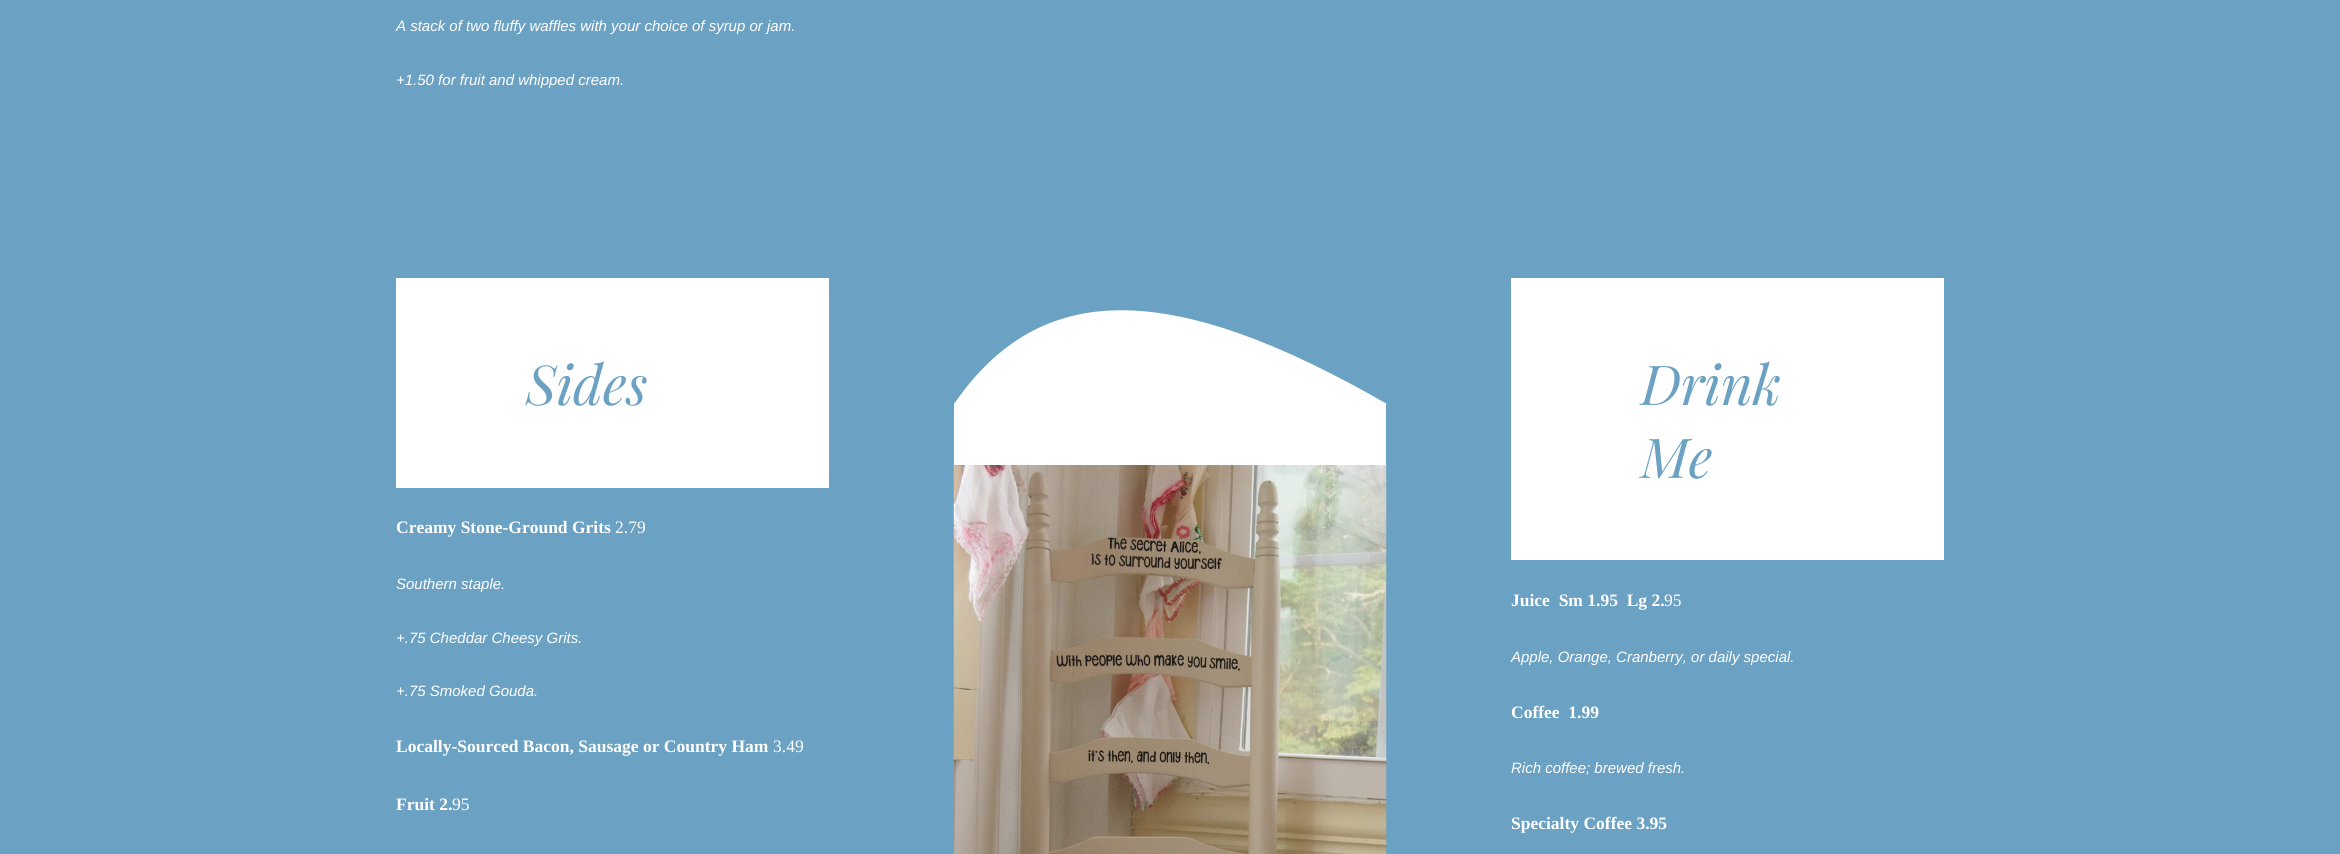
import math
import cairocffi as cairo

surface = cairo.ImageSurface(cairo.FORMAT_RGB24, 2340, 854)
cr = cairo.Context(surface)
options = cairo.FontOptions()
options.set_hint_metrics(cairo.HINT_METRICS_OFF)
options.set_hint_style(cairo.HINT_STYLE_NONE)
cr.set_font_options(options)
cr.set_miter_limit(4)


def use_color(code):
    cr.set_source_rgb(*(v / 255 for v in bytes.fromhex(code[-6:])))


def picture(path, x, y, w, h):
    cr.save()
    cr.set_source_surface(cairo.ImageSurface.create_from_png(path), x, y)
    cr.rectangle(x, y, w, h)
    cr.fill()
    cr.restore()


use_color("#6ba1c2")
cr.paint()
cr.select_font_face("Liberation Sans", cairo.FONT_SLANT_ITALIC)
cr.set_font_size(15)
use_color("#ffffff")
cr.move_to(396, 31)
cr.show_text("A stack of two fluffy waffles with your choice of syrup or jam.")
cr.move_to(396, 85)
cr.show_text("+1.50 for fruit and whipped cream.")
cr.rectangle(396, 278, 433, 210)
cr.fill()
cr.select_font_face("Playfair Display", cairo.FONT_SLANT_ITALIC)
cr.set_font_size(55)
use_color("#6ba1c2")
cr.move_to(526, 405)
cr.show_text("Sides")
cr.select_font_face("Liberation Serif", cairo.FONT_SLANT_NORMAL, cairo.FONT_WEIGHT_BOLD)
cr.set_font_size(17.5)
use_color("#ffffff")
cr.move_to(396, 533)
cr.show_text("Creamy Stone-Ground Grits")
cr.select_font_face("Liberation Serif")
cr.move_to(615, 533)
cr.show_text("2.79")
cr.select_font_face("Liberation Sans", cairo.FONT_SLANT_ITALIC)
cr.set_font_size(15)
cr.move_to(396, 589)
cr.show_text("Southern staple.")
cr.move_to(396, 643)
cr.show_text("+.75 Cheddar Cheesy Grits.")
cr.move_to(396, 696)
cr.show_text("+.75 Smoked Gouda.")
cr.select_font_face("Liberation Serif", cairo.FONT_SLANT_NORMAL, cairo.FONT_WEIGHT_BOLD)
cr.set_font_size(17.5)
cr.move_to(396, 752)
cr.show_text("Locally-Sourced Bacon, Sausage or Country Ham")
cr.select_font_face("Liberation Serif")
cr.move_to(773, 752)
cr.show_text("3.49")
cr.select_font_face("Liberation Serif", cairo.FONT_SLANT_NORMAL, cairo.FONT_WEIGHT_BOLD)
cr.move_to(396, 810)
cr.show_text("Fruit 2.")
cr.select_font_face("Liberation Serif")
cr.move_to(452, 810)
cr.show_text("95")
picture("img1.png", 953, 464, 434, 390)
cr.rectangle(954, 403, 432, 62)
cr.fill()
cr.new_path()
cr.move_to(954, 404)
cr.curve_to(1040, 279, 1170, 279, 1387, 404)
cr.close_path()
cr.fill()
cr.rectangle(1511, 278, 433, 282)
cr.fill()
cr.select_font_face("Playfair Display", cairo.FONT_SLANT_ITALIC)
cr.set_font_size(55)
use_color("#6ba1c2")
cr.move_to(1641, 405)
cr.show_text("Drink")
cr.move_to(1641, 478)
cr.show_text("Me")
cr.select_font_face("Liberation Serif", cairo.FONT_SLANT_NORMAL, cairo.FONT_WEIGHT_BOLD)
cr.set_font_size(17.5)
use_color("#ffffff")
cr.move_to(1511, 606)
cr.show_text("Juice  Sm 1.95  Lg 2.")
cr.select_font_face("Liberation Serif")
cr.move_to(1664, 606)
cr.show_text("95")
cr.select_font_face("Liberation Sans", cairo.FONT_SLANT_ITALIC)
cr.set_font_size(15)
cr.move_to(1511, 662)
cr.show_text("Apple, Orange, Cranberry, or daily special.")
cr.select_font_face("Liberation Serif", cairo.FONT_SLANT_NORMAL, cairo.FONT_WEIGHT_BOLD)
cr.set_font_size(17.5)
cr.move_to(1511, 718)
cr.show_text("Coffee  1.99")
cr.select_font_face("Liberation Sans", cairo.FONT_SLANT_ITALIC)
cr.set_font_size(15)
cr.move_to(1511, 773)
cr.show_text("Rich coffee; brewed fresh.")
cr.select_font_face("Liberation Serif", cairo.FONT_SLANT_NORMAL, cairo.FONT_WEIGHT_BOLD)
cr.set_font_size(17.5)
cr.move_to(1511, 829)
cr.show_text("Specialty Coffee 3.95")
surface.write_to_png("result.png")
